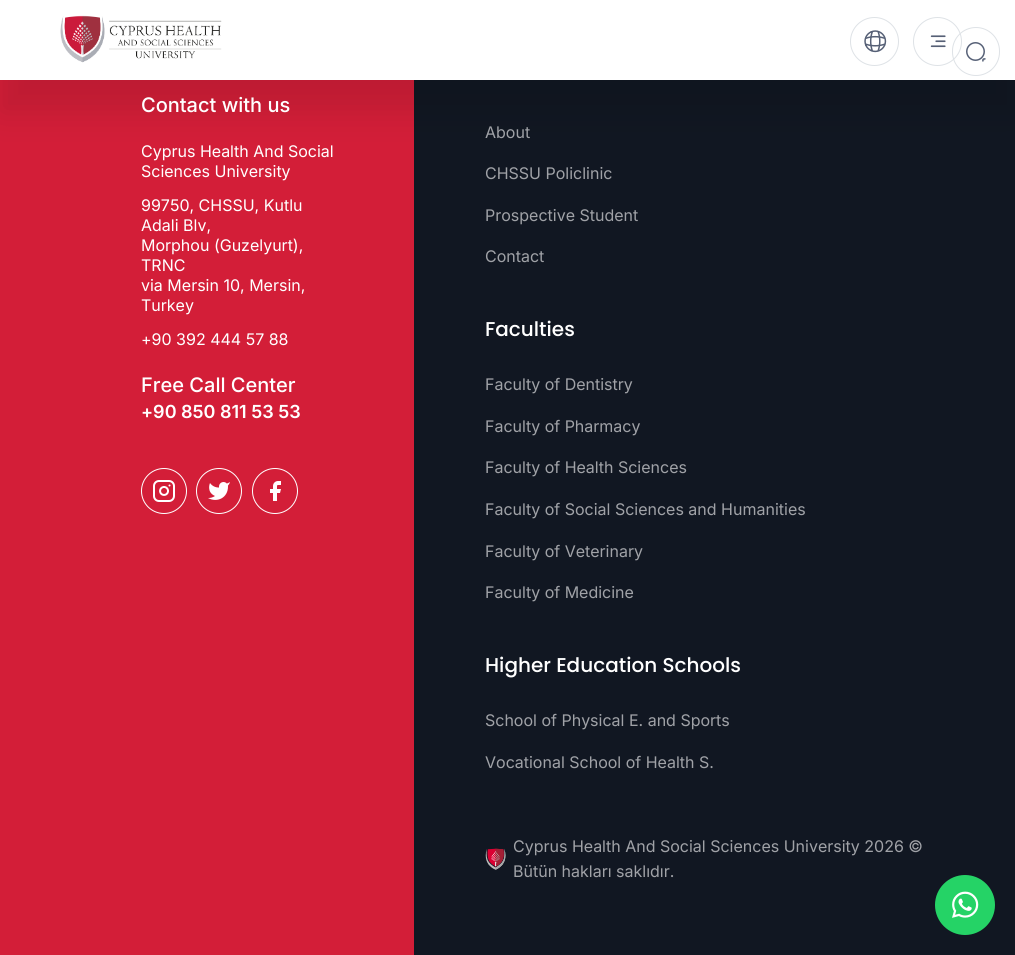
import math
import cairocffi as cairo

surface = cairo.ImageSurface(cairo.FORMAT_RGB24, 1015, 955)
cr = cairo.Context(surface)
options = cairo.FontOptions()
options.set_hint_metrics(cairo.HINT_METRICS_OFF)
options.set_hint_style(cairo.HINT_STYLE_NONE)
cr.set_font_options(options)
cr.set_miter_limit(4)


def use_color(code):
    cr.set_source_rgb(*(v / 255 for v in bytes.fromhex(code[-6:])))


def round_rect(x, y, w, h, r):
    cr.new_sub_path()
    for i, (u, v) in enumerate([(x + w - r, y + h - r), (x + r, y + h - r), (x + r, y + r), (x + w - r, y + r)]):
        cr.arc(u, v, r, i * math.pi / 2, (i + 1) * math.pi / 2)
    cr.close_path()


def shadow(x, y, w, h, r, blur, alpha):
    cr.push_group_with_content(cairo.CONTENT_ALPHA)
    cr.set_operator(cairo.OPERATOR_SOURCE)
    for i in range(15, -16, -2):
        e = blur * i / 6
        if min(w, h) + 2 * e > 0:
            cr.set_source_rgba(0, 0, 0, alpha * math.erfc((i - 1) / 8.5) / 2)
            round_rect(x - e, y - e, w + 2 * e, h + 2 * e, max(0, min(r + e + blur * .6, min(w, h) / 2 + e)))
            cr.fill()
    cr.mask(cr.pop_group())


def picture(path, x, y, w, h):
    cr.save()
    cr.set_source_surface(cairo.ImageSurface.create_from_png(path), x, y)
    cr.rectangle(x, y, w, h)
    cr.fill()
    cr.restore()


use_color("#d31e38")
cr.paint()
use_color("#111722")
cr.rectangle(414, 80, 601, 875)
cr.fill()
use_color("#000000")
shadow(0, 33, 1015, 80, 0, 16, 0.1)
use_color("#ffffff")
cr.rectangle(0, 0, 1015, 80)
cr.fill()
picture("img1.png", 60, 15, 162, 48)
cr.arc(874.5, 41.5, 24, 0, 2 * math.pi)
use_color("#dee2e6")
cr.set_line_width(1)
cr.stroke()
picture("img2.png", 864, 30, 23, 23)
cr.arc(937.5, 41.5, 24, 0, 2 * math.pi)
cr.stroke()
picture("img3.png", 930, 35, 16, 13)
round_rect(952.5, 27.5, 47, 48, 23.5)
cr.stroke()
picture("img4.png", 966, 42, 20, 20)
cr.select_font_face("Inter Medium")
cr.set_font_size(20)
use_color("#ffffff")
cr.move_to(141, 112)
cr.show_text("Contact with us")
cr.select_font_face("Inter")
cr.set_font_size(16)
cr.move_to(141, 157)
cr.show_text("Cyprus Health And Social")
cr.move_to(141, 177)
cr.show_text("Sciences University")
cr.move_to(141, 211)
cr.show_text("99750, CHSSU, Kutlu")
cr.move_to(141, 231)
cr.show_text("Adali Blv,")
cr.move_to(141, 251)
cr.show_text("Morphou (Guzelyurt),")
cr.move_to(141, 271)
cr.show_text("TRNC")
cr.move_to(141, 291)
cr.show_text("via Mersin 10, Mersin,")
cr.move_to(141, 311)
cr.show_text("Turkey")
cr.move_to(141, 345)
cr.show_text("+90 392 444 57 88")
cr.select_font_face("Inter Medium")
cr.set_font_size(20)
cr.move_to(141, 392)
cr.show_text("Free Call Center")
cr.select_font_face("Inter SemiBold")
cr.set_font_size(18)
cr.move_to(141, 418)
cr.show_text("+90 850 811 53 53")
picture("img5.png", 153, 480, 22, 22)
cr.arc(164, 491, 22.5, 0, 2 * math.pi)
cr.stroke()
picture("img6.png", 208, 482, 22, 18)
cr.arc(219, 491, 22.5, 0, 2 * math.pi)
cr.stroke()
picture("img7.png", 270, 481, 11, 20)
cr.arc(275, 491, 22.5, 0, 2 * math.pi)
cr.stroke()
cr.select_font_face("Inter")
cr.set_font_size(16)
use_color("#a0a2a7")
cr.move_to(485, 138)
cr.show_text("About")
cr.move_to(485, 179)
cr.show_text("CHSSU Policlinic")
cr.move_to(485, 221)
cr.show_text("Prospective Student")
cr.move_to(485, 262)
cr.show_text("Contact")
cr.select_font_face("Poppins Medium")
cr.set_font_size(20)
use_color("#ffffff")
cr.move_to(485, 336)
cr.show_text("Faculties")
cr.select_font_face("Inter")
cr.set_font_size(16)
use_color("#a0a2a7")
cr.move_to(485, 390)
cr.show_text("Faculty of Dentistry")
cr.move_to(485, 432)
cr.show_text("Faculty of Pharmacy")
cr.move_to(485, 473)
cr.show_text("Faculty of Health Sciences")
cr.move_to(485, 515)
cr.show_text("Faculty of Social Sciences and Humanities")
cr.move_to(485, 557)
cr.show_text("Faculty of Veterinary")
cr.move_to(485, 598)
cr.show_text("Faculty of Medicine")
cr.select_font_face("Poppins Medium")
cr.set_font_size(20)
use_color("#ffffff")
cr.move_to(485, 672)
cr.show_text("Higher Education Schools")
cr.select_font_face("Inter")
cr.set_font_size(16)
use_color("#a0a2a7")
cr.move_to(485, 726)
cr.show_text("School of Physical E. and Sports")
cr.move_to(485, 768)
cr.show_text("Vocational School of Health S.")
picture("img8.png", 485, 848, 21, 22)
cr.move_to(513, 852)
cr.show_text("Cyprus Health And Social Sciences University 2026 ©")
cr.move_to(513, 877)
cr.show_text("Bütün hakları saklıdır.")
use_color("#25d366")
cr.new_path()
cr.arc(965, 905, 30, 0, 2 * math.pi)
cr.fill()
picture("img9.png", 952, 891, 27, 27)
surface.write_to_png("result.png")
